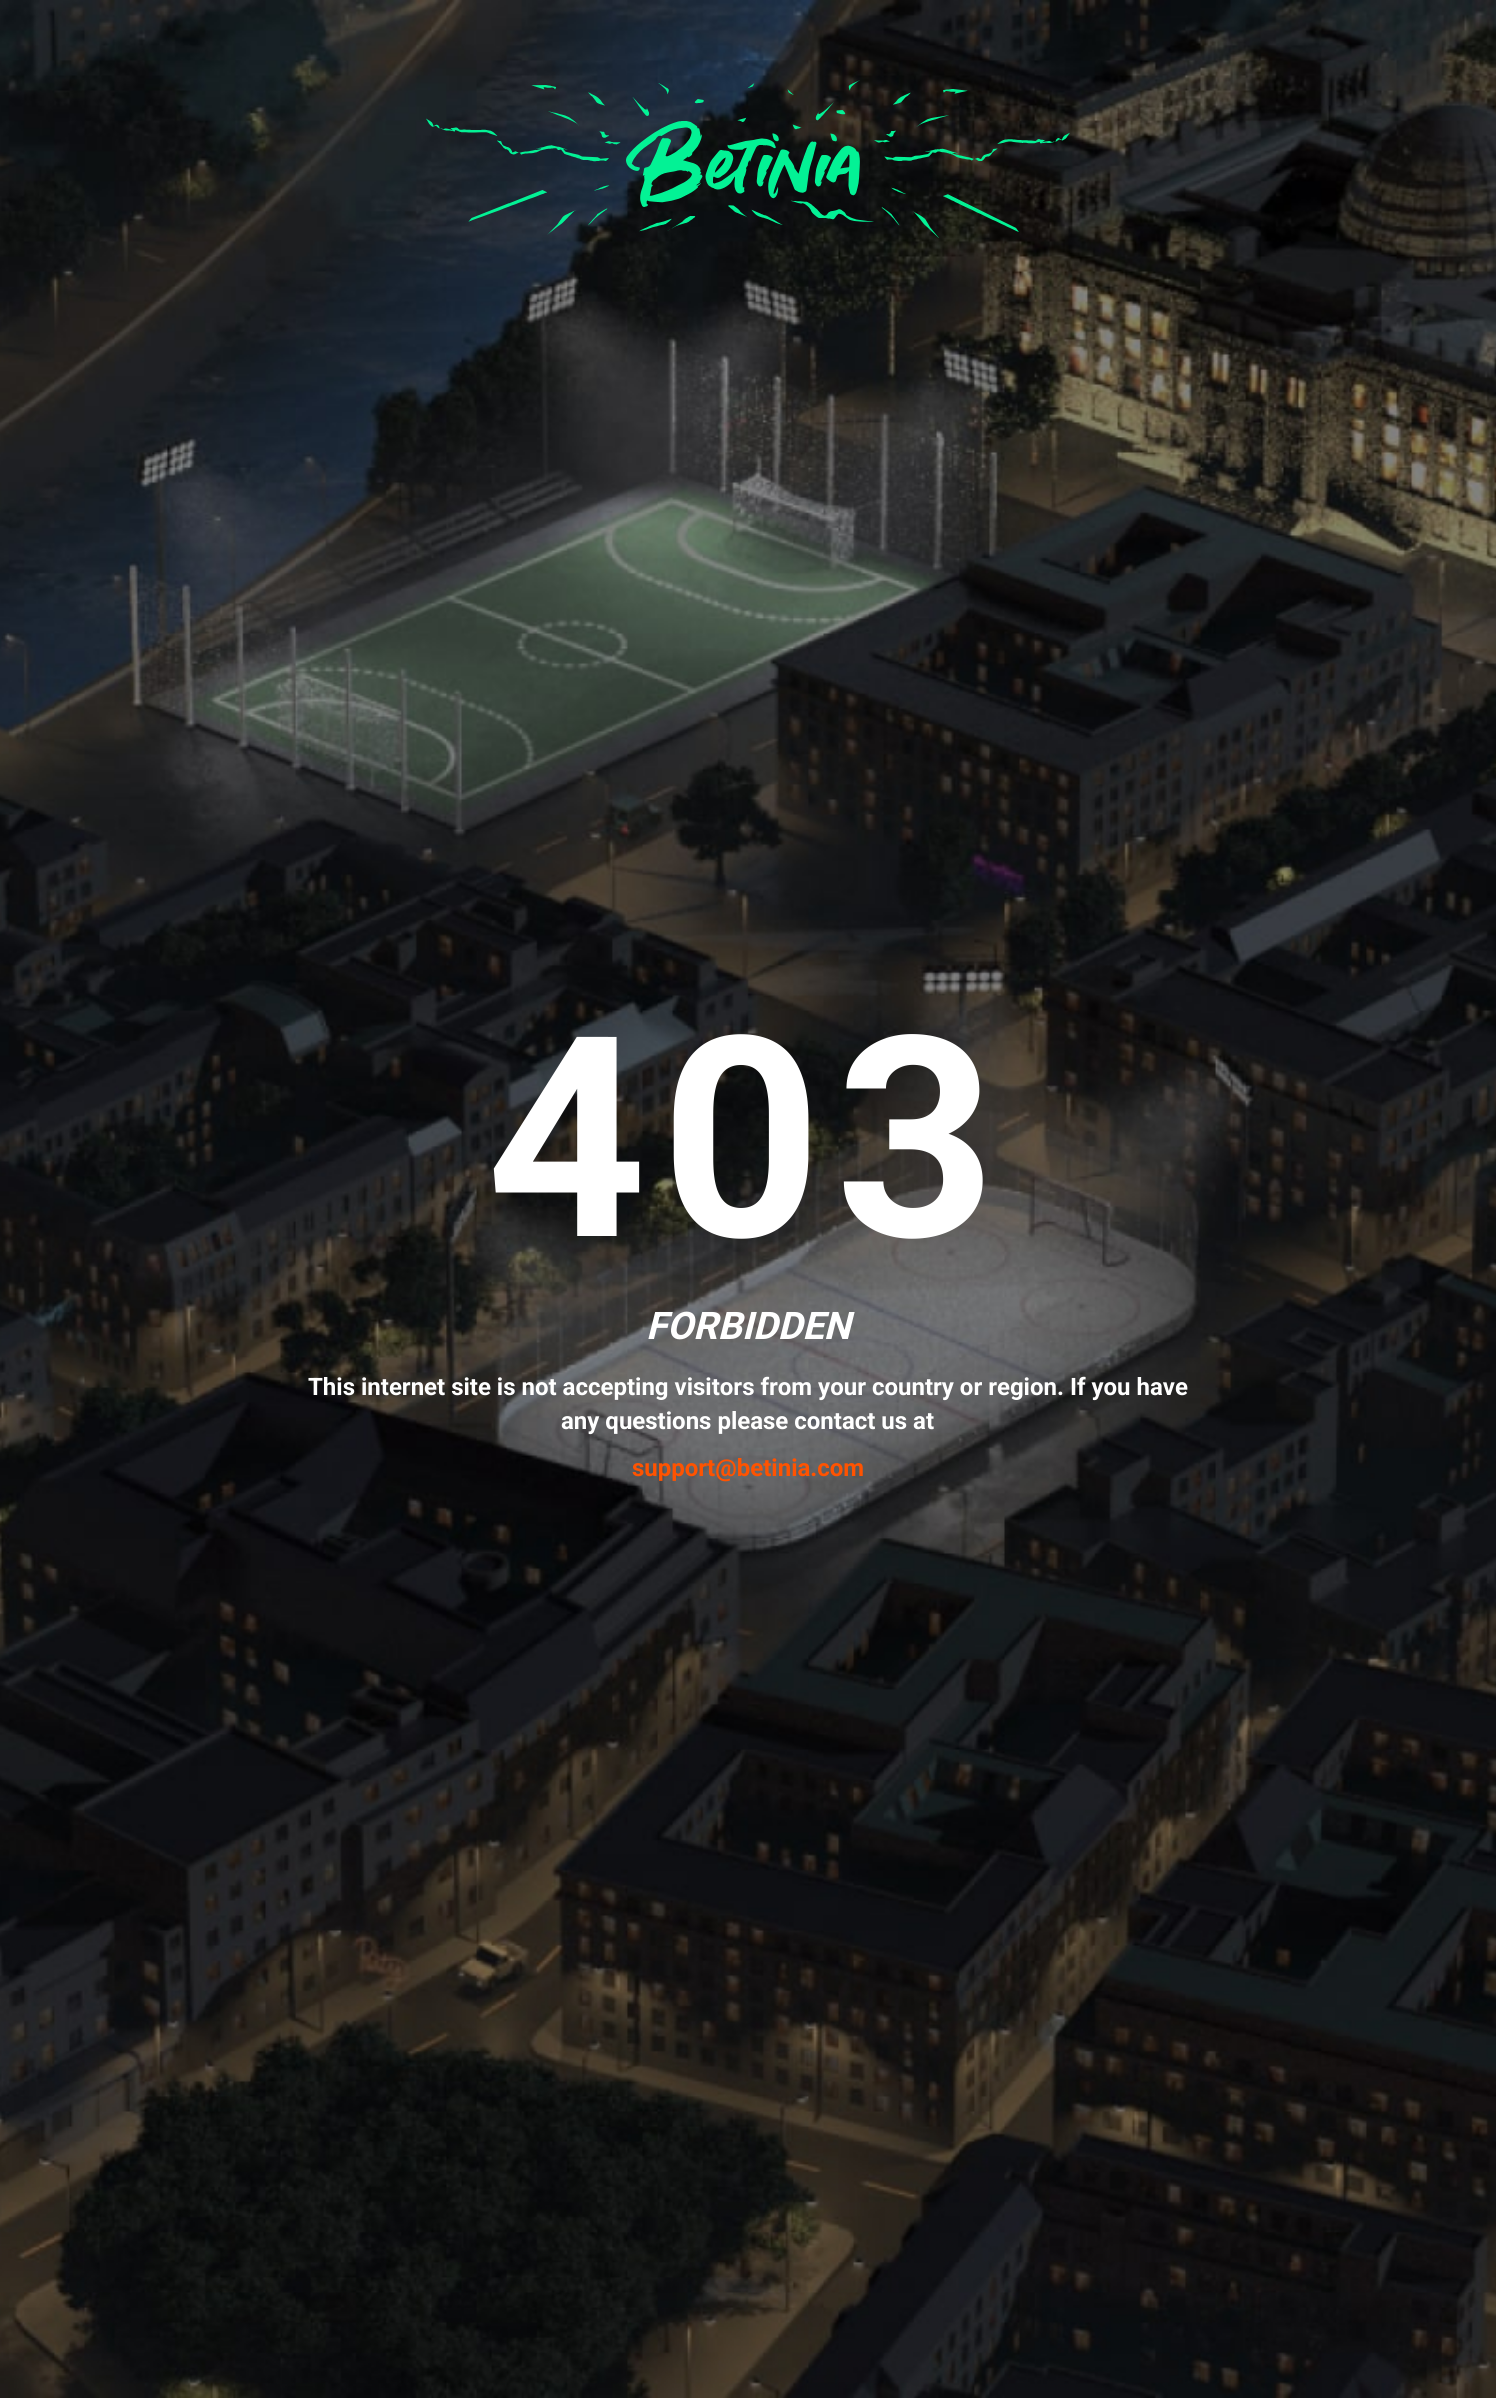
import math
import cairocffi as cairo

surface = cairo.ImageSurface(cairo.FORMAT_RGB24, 1496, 2398)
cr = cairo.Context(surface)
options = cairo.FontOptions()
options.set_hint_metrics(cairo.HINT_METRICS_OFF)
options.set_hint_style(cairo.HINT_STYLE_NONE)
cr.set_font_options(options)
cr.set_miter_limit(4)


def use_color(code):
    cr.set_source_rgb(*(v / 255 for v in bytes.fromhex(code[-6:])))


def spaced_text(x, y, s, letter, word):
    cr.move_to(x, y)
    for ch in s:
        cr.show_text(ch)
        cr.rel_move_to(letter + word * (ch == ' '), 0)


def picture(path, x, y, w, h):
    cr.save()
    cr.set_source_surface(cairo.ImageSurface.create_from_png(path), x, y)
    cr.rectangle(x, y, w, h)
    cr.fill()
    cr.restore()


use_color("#ffffff")
cr.paint()
picture("img1.png", 0, 0, 1496, 2398)
picture("img2.png", 426, 80, 644, 158)
cr.select_font_face("Roboto", cairo.FONT_SLANT_NORMAL, cairo.FONT_WEIGHT_BOLD)
cr.set_font_size(280)
use_color("#ffffff")
spaced_text(486, 1236, "403", 14, 0)
cr.select_font_face("Roboto", cairo.FONT_SLANT_ITALIC, cairo.FONT_WEIGHT_BOLD)
cr.set_font_size(38)
cr.move_to(646, 1339)
cr.show_text("FORBIDDEN")
cr.select_font_face("Roboto", cairo.FONT_SLANT_NORMAL, cairo.FONT_WEIGHT_BOLD)
cr.set_font_size(24)
cr.move_to(308, 1395)
cr.show_text("This internet site is not accepting visitors from your country or region. If you have")
cr.move_to(561, 1429)
cr.show_text("any questions please contact us at")
use_color("#ff5300")
cr.move_to(632, 1476)
cr.show_text("support@betinia.com")
surface.write_to_png("result.png")
